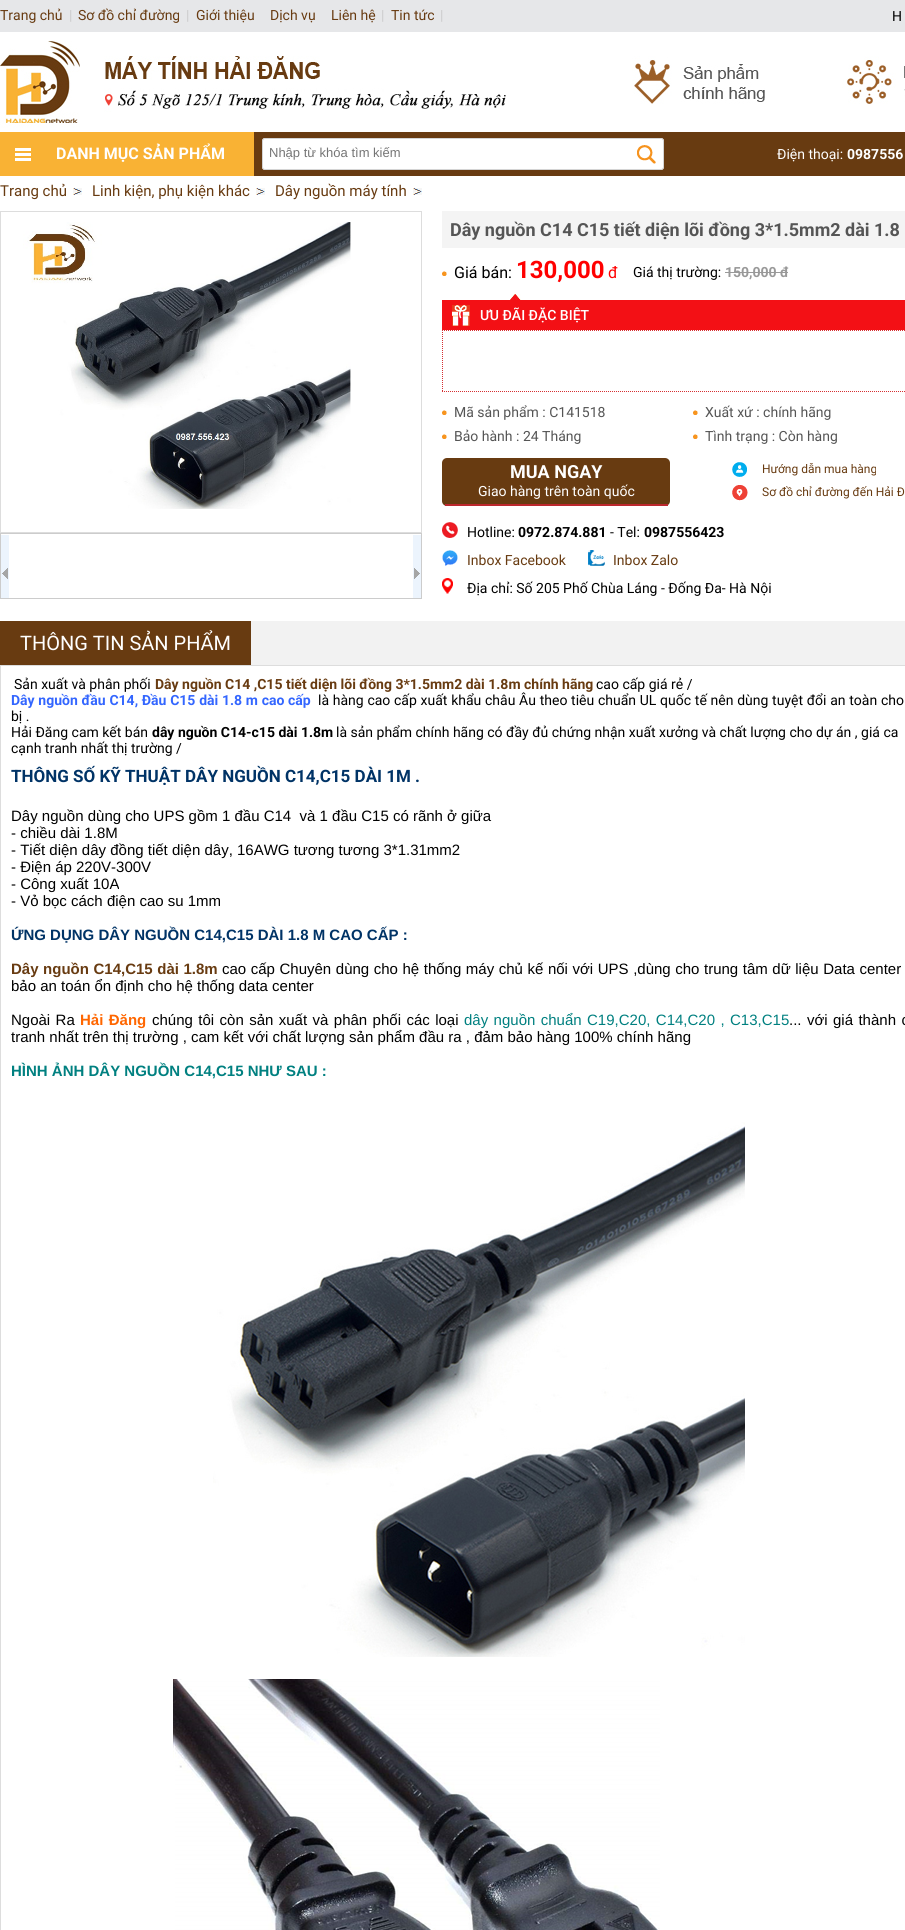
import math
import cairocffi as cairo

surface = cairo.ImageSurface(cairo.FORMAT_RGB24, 905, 1930)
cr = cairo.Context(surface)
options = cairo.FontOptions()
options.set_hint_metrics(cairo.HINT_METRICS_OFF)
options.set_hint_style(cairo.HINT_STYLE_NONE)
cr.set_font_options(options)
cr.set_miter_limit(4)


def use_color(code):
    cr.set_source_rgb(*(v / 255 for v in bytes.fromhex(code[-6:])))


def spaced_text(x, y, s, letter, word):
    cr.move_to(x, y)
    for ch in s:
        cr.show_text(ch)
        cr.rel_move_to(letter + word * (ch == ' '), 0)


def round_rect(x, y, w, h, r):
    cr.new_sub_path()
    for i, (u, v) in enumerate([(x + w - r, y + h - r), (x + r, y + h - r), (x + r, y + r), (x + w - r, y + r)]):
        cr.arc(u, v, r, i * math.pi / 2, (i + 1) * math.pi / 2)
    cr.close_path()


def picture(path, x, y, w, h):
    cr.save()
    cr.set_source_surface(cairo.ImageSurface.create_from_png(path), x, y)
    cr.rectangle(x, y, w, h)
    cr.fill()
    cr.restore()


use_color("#ffffff")
cr.paint()
use_color("#e6e7e9")
cr.rectangle(0, 0, 905, 32)
cr.fill()
cr.select_font_face("Roboto")
cr.set_font_size(14)
use_color("#683b11")
cr.move_to(0, 20)
cr.show_text("Trang chủ")
use_color("#cccccc")
cr.move_to(69, 20)
cr.show_text("|")
use_color("#683b11")
cr.move_to(78, 20)
cr.show_text("Sơ đồ chỉ đường")
use_color("#cccccc")
cr.move_to(186, 20)
cr.show_text("|")
use_color("#683b11")
cr.move_to(196, 20)
cr.show_text("Giới thiệu")
cr.move_to(270, 20)
cr.show_text("Dịch vụ")
cr.move_to(331, 20)
cr.show_text("Liên hệ")
use_color("#cccccc")
cr.move_to(381, 20)
cr.show_text("|")
use_color("#683b11")
cr.move_to(391, 20)
cr.show_text("Tin tức")
use_color("#cccccc")
cr.move_to(440, 20)
cr.show_text("|")
use_color("#000000")
cr.move_to(892, 21)
cr.show_text("H")
picture("img1.png", 0, 41, 905, 87)
use_color("#683b11")
cr.rectangle(254, 132, 651, 44)
cr.fill()
use_color("#f9b234")
cr.rectangle(0, 132, 254, 44)
cr.fill()
picture("img2.png", 15, 148, 16, 13)
cr.select_font_face("Roboto", cairo.FONT_SLANT_NORMAL, cairo.FONT_WEIGHT_BOLD)
cr.set_font_size(16)
use_color("#ffffff")
cr.move_to(56, 159)
cr.show_text("DANH MỤC SẢN PHẨM")
cr.select_font_face("Roboto")
cr.set_font_size(14)
cr.move_to(777, 159)
cr.show_text("Điện thoại:")
cr.select_font_face("Roboto", cairo.FONT_SLANT_NORMAL, cairo.FONT_WEIGHT_BOLD)
cr.move_to(847, 159)
cr.show_text("0987556")
round_rect(262, 138, 402, 32, 3)
cr.fill()
picture("img3.png", 637, 145, 19, 19)
round_rect(262.5, 138.5, 401, 31, 2.5)
use_color("#d4d4d4")
cr.set_line_width(1)
cr.stroke()
cr.select_font_face("Liberation Sans")
cr.set_font_size(13)
use_color("#757575")
cr.move_to(269, 157)
cr.show_text("Nhập từ khóa tìm kiếm")
picture("img4.png", 73, 188, 9, 7)
cr.select_font_face("Roboto")
cr.set_font_size(15)
use_color("#683b11")
cr.move_to(0, 196)
cr.show_text("Trang chủ")
picture("img4.png", 256, 188, 9, 7)
cr.move_to(92, 196)
cr.show_text("Linh kiện, phụ kiện khác")
picture("img4.png", 413, 188, 9, 7)
cr.move_to(275, 196)
cr.show_text("Dây nguồn máy tính")
cr.rectangle(0.5, 211.5, 421, 321)
use_color("#dddddd")
cr.stroke()
picture("img5.png", 23, 222, 328, 287)
cr.rectangle(0.5, 533.5, 421, 65)
use_color("#cccccc")
cr.stroke()
use_color("#ecf4fd")
cr.rectangle(1, 535, 8, 63)
cr.fill()
picture("img6.png", 2, 568, 6, 11)
cr.rectangle(413, 535, 8, 63)
cr.fill()
picture("img7.png", 414, 568, 6, 11)
use_color("#f4f4f4")
cr.rectangle(442, 211, 463, 37)
cr.fill()
cr.select_font_face("Roboto", cairo.FONT_SLANT_NORMAL, cairo.FONT_WEIGHT_BOLD)
cr.set_font_size(18)
use_color("#555555")
cr.move_to(450, 236)
cr.show_text("Dây nguồn C14 C15 tiết diện lõi đồng 3*1.5mm2 dài 1.8")
picture("img8.png", 442, 271, 5, 5)
cr.select_font_face("Roboto")
cr.set_font_size(16)
use_color("#000000")
cr.move_to(454, 278)
cr.show_text("Giá bán:")
cr.select_font_face("Roboto", cairo.FONT_SLANT_NORMAL, cairo.FONT_WEIGHT_BOLD)
cr.set_font_size(24)
use_color("#ff0000")
cr.move_to(516, 278)
cr.show_text("130,000")
cr.select_font_face("Roboto")
cr.set_font_size(16)
cr.move_to(608, 278)
cr.show_text("đ")
cr.set_font_size(14)
use_color("#000000")
cr.move_to(633, 277)
cr.show_text("Giá thị trường:")
cr.select_font_face("Roboto", cairo.FONT_SLANT_NORMAL, cairo.FONT_WEIGHT_BOLD)
use_color("#999999")
cr.move_to(725, 277)
cr.show_text("150,000 đ")
cr.rectangle(725, 272, 63, 1)
cr.fill()
picture("img9.png", 510, 294, 11, 6)
use_color("#f31015")
cr.rectangle(442, 300, 463, 30)
cr.fill()
picture("img10.png", 452, 305, 18, 21)
cr.select_font_face("Roboto Medium")
use_color("#ffffff")
cr.move_to(480, 320)
cr.show_text("ƯU ĐÃI ĐẶC BIỆT")
cr.new_path()
cr.move_to(442, 330.5)
cr.line_to(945, 330.5)
use_color("#d52f32")
cr.set_dash([1, 1])
cr.stroke()
cr.new_path()
cr.move_to(442, 391.5)
cr.line_to(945, 391.5)
cr.stroke()
cr.new_path()
cr.move_to(442.5, 330)
cr.line_to(442.5, 392)
cr.stroke()
picture("img8.png", 442, 410, 5, 5)
cr.select_font_face("Roboto")
use_color("#555555")
cr.move_to(454, 417)
cr.show_text("Mã sản phẩm : C141518")
picture("img8.png", 693, 410, 5, 5)
cr.move_to(705, 417)
cr.show_text("Xuất xứ : chính hãng")
picture("img8.png", 442, 434, 5, 5)
cr.move_to(454, 441)
cr.show_text("Bảo hành : 24 Tháng")
picture("img8.png", 693, 434, 5, 5)
cr.move_to(705, 441)
cr.show_text("Tình trạng : Còn hàng")
use_color("#683b11")
round_rect(442, 458, 228, 48, 5)
cr.fill()
use_color("#bc272d")
cr.rectangle(445, 504, 223, 2)
cr.fill()
cr.select_font_face("Roboto", cairo.FONT_SLANT_NORMAL, cairo.FONT_WEIGHT_BOLD)
cr.set_font_size(18)
use_color("#ffffff")
cr.move_to(510, 478)
cr.show_text("MUA NGAY")
cr.select_font_face("Roboto")
cr.set_font_size(14)
cr.move_to(478, 496)
cr.show_text("Giao hàng trên toàn quốc")
picture("img11.png", 732, 462, 15, 15)
cr.set_font_size(12)
use_color("#683b11")
cr.move_to(762, 473)
cr.show_text("Hướng dẫn mua hàng")
picture("img12.png", 732, 485, 16, 16)
cr.move_to(762, 496)
cr.show_text("Sơ đồ chỉ đường đến Hải Đ")
picture("img13.png", 442, 522, 16, 16)
cr.set_font_size(14)
use_color("#000000")
cr.move_to(467, 537)
cr.show_text("Hotline:")
cr.select_font_face("Roboto", cairo.FONT_SLANT_NORMAL, cairo.FONT_WEIGHT_BOLD)
cr.move_to(518, 537)
cr.show_text("0972.874.881")
cr.select_font_face("Roboto")
cr.move_to(610, 537)
cr.show_text("- Tel:")
cr.select_font_face("Roboto", cairo.FONT_SLANT_NORMAL, cairo.FONT_WEIGHT_BOLD)
cr.move_to(644, 537)
cr.show_text("0987556423")
picture("img14.png", 442, 550, 16, 16)
cr.select_font_face("Roboto")
use_color("#683b11")
cr.move_to(467, 565)
cr.show_text("Inbox Facebook")
picture("img15.png", 588, 550, 17, 16)
cr.move_to(613, 565)
cr.show_text("Inbox Zalo")
picture("img16.png", 442, 578, 11, 16)
use_color("#000000")
cr.move_to(467, 593)
cr.show_text("Địa chỉ: Số 205 Phố Chùa Láng - Đống Đa- Hà Nội")
use_color("#f2f2f2")
cr.rectangle(251, 621, 654, 44)
cr.fill()
use_color("#683b11")
cr.rectangle(0, 621, 251, 44)
cr.fill()
cr.set_font_size(20)
use_color("#ffffff")
cr.move_to(20, 650)
cr.show_text("THÔNG TIN SẢN PHẨM")
cr.rectangle(0.5, 665.5, 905, 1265)
use_color("#dddddd")
cr.set_dash([])
cr.stroke()
cr.set_font_size(14)
use_color("#000000")
cr.move_to(14, 689)
cr.show_text("Sản xuất và phân phối")
cr.select_font_face("Roboto", cairo.FONT_SLANT_NORMAL, cairo.FONT_WEIGHT_BOLD)
use_color("#683b11")
cr.move_to(155, 689)
cr.show_text("Dây nguồn C14 ,C15 tiết diện lõi đồng 3*1.5mm2 dài 1.8m chính hãng")
cr.select_font_face("Roboto")
use_color("#000000")
cr.move_to(596, 689)
cr.show_text("cao cấp giá rẻ /")
cr.select_font_face("Roboto", cairo.FONT_SLANT_NORMAL, cairo.FONT_WEIGHT_BOLD)
use_color("#3366ff")
spaced_text(11, 705, "Dây nguồn đầu C14, Đầu C15 dài 1.8 m cao cấp", 0, 0.25)
cr.select_font_face("Roboto")
use_color("#000000")
spaced_text(318, 705, "là hàng cao cấp xuất khẩu châu Âu theo tiêu chuẩn UL quốc tế nên dùng tuyệt đổi an toàn cho", 0, 0.25)
cr.move_to(11, 721)
cr.show_text("bị .")
cr.move_to(11, 737)
cr.show_text("Hải Đăng cam kết bán")
cr.select_font_face("Roboto", cairo.FONT_SLANT_NORMAL, cairo.FONT_WEIGHT_BOLD)
cr.move_to(152, 737)
cr.show_text("dây nguồn C14-c15 dài 1.8m")
cr.select_font_face("Roboto")
cr.move_to(336, 737)
cr.show_text("là sản phẩm chính hãng có đầy đủ chứng nhận xuất xưởng và chất lượng cho dự án , giá ca")
cr.move_to(11, 753)
cr.show_text("cạnh tranh nhất thị trường /")
cr.select_font_face("Roboto", cairo.FONT_SLANT_NORMAL, cairo.FONT_WEIGHT_BOLD)
cr.set_font_size(17)
use_color("#003366")
cr.move_to(11, 782)
cr.show_text("THÔNG SỐ KỸ THUẬT DÂY NGUỒN C14,C15 DÀI 1M .")
cr.select_font_face("Liberation Sans")
cr.set_font_size(15)
use_color("#000000")
cr.move_to(11, 821)
cr.show_text("Dây nguồn dùng cho UPS gồm 1 đầu C14  và 1 đầu C15 có rãnh ở giữa")
cr.move_to(11, 838)
cr.show_text("- chiều dài 1.8M")
cr.move_to(11, 855)
cr.show_text("- Tiết diện dây đồng tiết diện dây, 16AWG tương tương 3*1.31mm2")
cr.move_to(11, 872)
cr.show_text("- Điện áp 220V-300V")
cr.move_to(11, 889)
cr.show_text("- Công xuất 10A")
cr.move_to(11, 906)
cr.show_text("- Vỏ bọc cách điện cao su 1mm")
cr.select_font_face("Liberation Sans", cairo.FONT_SLANT_NORMAL, cairo.FONT_WEIGHT_BOLD)
use_color("#003366")
cr.move_to(11, 940)
cr.show_text("ỨNG DỤNG DÂY NGUỒN C14,C15 DÀI 1.8 M CAO CẤP :")
use_color("#683b11")
spaced_text(11, 974, "Dây nguồn C14,C15 dài 1.8m", 0, 0.4)
cr.select_font_face("Liberation Sans")
use_color("#000000")
spaced_text(222, 974, "cao cấp Chuyên dùng cho hệ thống máy chủ kế nối với UPS ,dùng cho trung tâm dữ liệu Data center", 0, 0.4)
cr.move_to(11, 991)
cr.show_text("bảo an toán ổn định cho hệ thống data center")
spaced_text(11, 1025, "Ngoài Ra", 0, 1.25)
cr.select_font_face("Liberation Sans", cairo.FONT_SLANT_NORMAL, cairo.FONT_WEIGHT_BOLD)
use_color("#ff6600")
spaced_text(80, 1025, "Hải Đăng", 0, 1.25)
cr.select_font_face("Liberation Sans")
use_color("#000000")
spaced_text(152, 1025, "chúng tôi còn sản xuất và phân phối các loại", 0, 1.25)
use_color("#008080")
spaced_text(464, 1025, "dây nguồn chuẩn C19,C20, C14,C20 , C13,C15", 0, 1.25)
use_color("#000000")
spaced_text(789, 1025, "... với giá thành c", 0, 1.25)
cr.move_to(11, 1042)
cr.show_text("tranh nhất trên thị trường , cam kết với chất lượng sản phẩm đầu ra , đảm bảo hàng 100% chính hãng")
cr.select_font_face("Liberation Sans", cairo.FONT_SLANT_NORMAL, cairo.FONT_WEIGHT_BOLD)
use_color("#008080")
cr.move_to(11, 1076)
cr.show_text("HÌNH ẢNH DÂY NGUỒN C14,C15 NHƯ SAU :")
picture("img17.png", 213, 1122, 532, 535)
picture("img18.png", 173, 1679, 487, 251)
surface.write_to_png("result.png")
